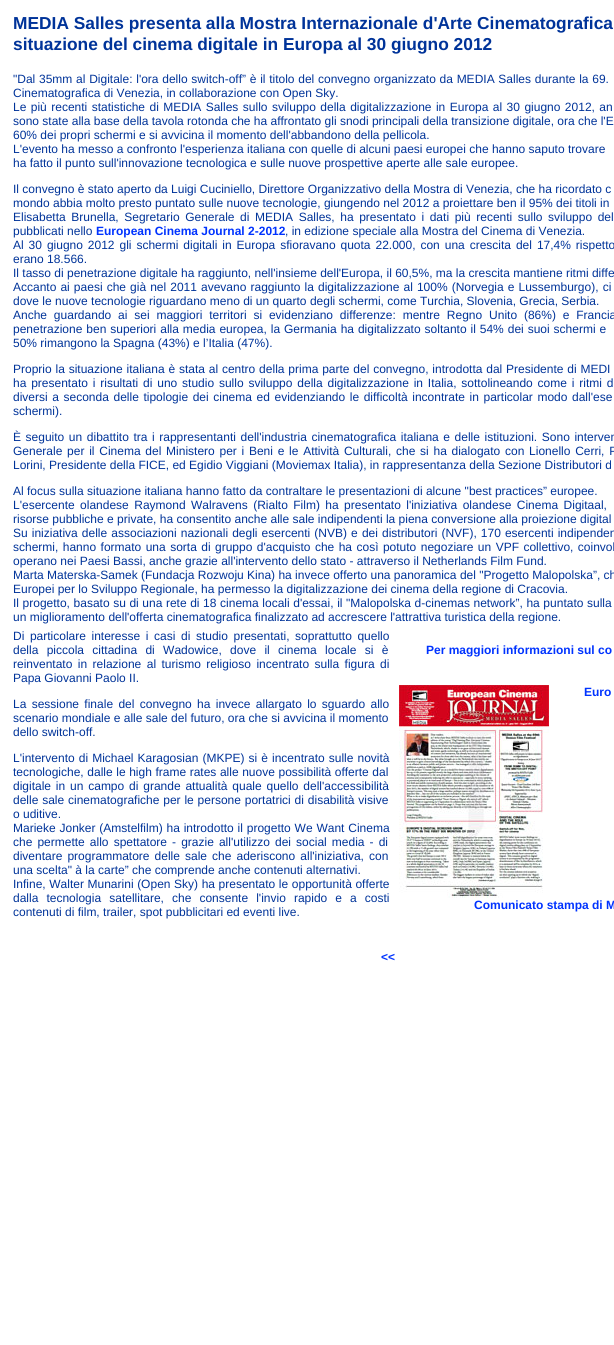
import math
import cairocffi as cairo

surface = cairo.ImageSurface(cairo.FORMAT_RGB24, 614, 1345)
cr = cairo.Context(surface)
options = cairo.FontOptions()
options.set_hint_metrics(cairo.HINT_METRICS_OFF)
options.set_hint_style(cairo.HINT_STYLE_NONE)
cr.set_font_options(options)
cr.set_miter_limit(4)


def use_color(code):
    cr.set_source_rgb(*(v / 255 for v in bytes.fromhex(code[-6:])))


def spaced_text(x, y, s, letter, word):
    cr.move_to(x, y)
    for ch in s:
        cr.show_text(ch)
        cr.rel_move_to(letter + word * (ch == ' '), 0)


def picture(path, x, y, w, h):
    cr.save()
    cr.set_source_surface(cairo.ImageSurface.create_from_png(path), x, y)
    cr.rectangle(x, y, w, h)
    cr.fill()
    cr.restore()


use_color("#ffffff")
cr.paint()
cr.select_font_face("Liberation Sans", cairo.FONT_SLANT_NORMAL, cairo.FONT_WEIGHT_BOLD)
cr.set_font_size(17.35)
use_color("#003399")
cr.move_to(13, 29)
cr.show_text("MEDIA Salles presenta alla Mostra Internazionale d'Arte Cinematografica")
cr.move_to(13, 50)
cr.show_text("situazione del cinema digitale in Europa al 30 giugno 2012")
cr.select_font_face("Liberation Sans")
cr.set_font_size(12)
spaced_text(13, 83, "\"Dal 35mm al Digitale: l'ora dello switch-off” è il titolo del convegno organizzato da MEDIA Salles durante la 69.", 0, 0.4)
cr.move_to(13, 97)
cr.show_text("Cinematografica di Venezia, in collaborazione con Open Sky.")
spaced_text(13, 111, "Le più recenti statistiche di MEDIA Salles sullo sviluppo della digitalizzazione in Europa al 30 giugno 2012, an", 0, 1.1)
cr.move_to(13, 125)
cr.show_text("sono state alla base della tavola rotonda che ha affrontato gli snodi principali della transizione digitale, ora che l'E")
cr.move_to(13, 139)
cr.show_text("60% dei propri schermi e si avvicina il momento dell'abbandono della pellicola.")
cr.move_to(13, 153)
cr.show_text("L'evento ha messo a confronto l'esperienza italiana con quelle di alcuni paesi europei che hanno saputo trovare")
cr.move_to(13, 167)
cr.show_text("ha fatto il punto sull'innovazione tecnologica e sulle nuove prospettive aperte alle sale europee.")
cr.move_to(13, 193)
cr.show_text("Il convegno è stato aperto da Luigi Cuciniello, Direttore Organizzativo della Mostra di Venezia, che ha ricordato c")
cr.move_to(13, 207)
cr.show_text("mondo abbia molto presto puntato sulle nuove tecnologie, giungendo nel 2012 a proiettare ben il 95% dei titoli in")
spaced_text(13, 221, "Elisabetta Brunella, Segretario Generale di MEDIA Salles, ha presentato i dati più recenti sullo sviluppo del", 0, 2.25)
cr.move_to(13, 235)
cr.show_text("pubblicati nello")
cr.select_font_face("Liberation Sans", cairo.FONT_SLANT_NORMAL, cairo.FONT_WEIGHT_BOLD)
use_color("#0033ff")
cr.move_to(96, 235)
cr.show_text("European Cinema Journal 2-2012")
cr.select_font_face("Liberation Sans")
use_color("#003399")
cr.move_to(285, 235)
cr.show_text(", in edizione speciale alla Mostra del Cinema di Venezia.")
spaced_text(13, 249, "Al 30 giugno 2012 gli schermi digitali in Europa sfioravano quota 22.000, con una crescita del 17,4% rispetto", 0, 1.6)
cr.move_to(13, 263)
cr.show_text("erano 18.566.")
cr.move_to(13, 277)
cr.show_text("Il tasso di penetrazione digitale ha raggiunto, nell'insieme dell'Europa, il 60,5%, ma la crescita mantiene ritmi diffe")
spaced_text(13, 291, "Accanto ai paesi che già nel 2011 avevano raggiunto la digitalizzazione al 100% (Norvegia e Lussemburgo), ci", 0, 0.75)
cr.move_to(13, 305)
cr.show_text("dove le nuove tecnologie riguardano meno di un quarto degli schermi, come Turchia, Slovenia, Grecia, Serbia.")
spaced_text(13, 319, "Anche guardando ai sei maggiori territori si evidenziano differenze: mentre Regno Unito (86%) e Francia", 0, 3.5)
spaced_text(13, 333, "penetrazione ben superiori alla media europea, la Germania ha digitalizzato soltanto il 54% dei suoi schermi e", 0, 0.6)
cr.move_to(13, 347)
cr.show_text("50% rimangono la Spagna (43%) e l’Italia (47%).")
spaced_text(13, 373, "Proprio la situazione italiana è stata al centro della prima parte del convegno, introdotta dal Presidente di MEDI", 0, 0.5)
spaced_text(13, 387, "ha presentato i risultati di uno studio sullo sviluppo della digitalizzazione in Italia, sottolineando come i ritmi d", 0, 1.5)
spaced_text(13, 401, "diversi a seconda delle tipologie dei cinema ed evidenziando le difficoltà incontrate in particolar modo dall'ese", 0, 1.25)
cr.move_to(13, 415)
cr.show_text("schermi).")
spaced_text(13, 441, "È seguito un dibattito tra i rappresentanti dell'industria cinematografica italiana e delle istituzioni. Sono interven", 0, 1.25)
spaced_text(13, 455, "Generale per il Cinema del Ministero per i Beni e le Attività Culturali, che si ha dialogato con Lionello Cerri, P", 0, 1.4)
cr.move_to(13, 469)
cr.show_text("Lorini, Presidente della FICE, ed Egidio Viggiani (Moviemax Italia), in rappresentanza della Sezione Distributori d")
cr.move_to(13, 495)
cr.show_text("Al focus sulla situazione italiana hanno fatto da contraltare le presentazioni di alcune \"best practices” europee.")
spaced_text(13, 509, "L'esercente olandese Raymond Walravens (Rialto Film) ha presentato l'iniziativa olandese Cinema Digitaal,", 0, 2.1)
cr.move_to(13, 523)
cr.show_text("risorse pubbliche e private, ha consentito anche alle sale indipendenti la piena conversione alla proiezione digital")
spaced_text(13, 537, "Su iniziativa delle associazioni nazionali degli esercenti (NVB) e dei distributori (NVF), 170 esercenti indipenden", 0, 0.75)
spaced_text(13, 551, "schermi, hanno formato una sorta di gruppo d'acquisto che ha così potuto negoziare un VPF collettivo, coinvol", 0, 1.1)
cr.move_to(13, 565)
cr.show_text("operano nei Paesi Bassi, anche grazie all'intervento dello stato - attraverso il Netherlands Film Fund.")
cr.move_to(13, 579)
cr.show_text("Marta Materska-Samek (Fundacja Rozwoju Kina) ha invece offerto una panoramica del \"Progetto Malopolska”, ch")
cr.move_to(13, 593)
cr.show_text("Europei per lo Sviluppo Regionale, ha permesso la digitalizzazione dei cinema della regione di Cracovia.")
spaced_text(13, 607, "Il progetto, basato su di una rete di 18 cinema locali d'essai, il \"Malopolska d-cinemas network”, ha puntato sulla", 0, 0.25)
cr.move_to(13, 621)
cr.show_text("un miglioramento dell'offerta cinematografica finalizzato ad accrescere l'attrattiva turistica della regione.")
spaced_text(13, 640, "Di particolare interesse i casi di studio presentati, soprattutto quello", 0, 2.25)
spaced_text(13, 654, "della piccola cittadina di Wadowice, dove il cinema locale si è", 0, 5)
spaced_text(13, 668, "reinventato in relazione al turismo religioso incentrato sulla figura di", 0, 2.1)
cr.move_to(13, 682)
cr.show_text("Papa Giovanni Paolo II.")
spaced_text(13, 708, "La sessione finale del convegno ha invece allargato lo sguardo allo", 0, 2)
cr.move_to(13, 722)
cr.show_text("scenario mondiale e alle sale del futuro, ora che si avvicina il momento")
cr.move_to(13, 736)
cr.show_text("dello switch-off.")
spaced_text(13, 762, "L'intervento di Michael Karagosian (MKPE) si è incentrato sulle novità", 0, 0.75)
spaced_text(13, 776, "tecnologiche, dalle le high frame rates alle nuove possibilità offerte dal", 0, 0.25)
spaced_text(13, 790, "digitale in un campo di grande attualità quale quello dell'accessibilità", 0, 1.5)
spaced_text(13, 804, "delle sale cinematografiche per le persone portatrici di disabilità visive", 0, 0.5)
cr.move_to(13, 818)
cr.show_text("o uditive.")
spaced_text(13, 832, "Marieke Jonker (Amstelfilm) ha introdotto il progetto We Want Cinema", 0, 0.5)
spaced_text(13, 846, "che permette allo spettatore - grazie all'utilizzo dei social media - di", 0, 1.75)
spaced_text(13, 860, "diventare programmatore delle sale che aderiscono all'iniziativa, con", 0, 1.75)
cr.move_to(13, 874)
cr.show_text("una scelta\" à la carte” che comprende anche contenuti alternativi.")
spaced_text(13, 888, "Infine, Walter Munarini (Open Sky) ha presentato le opportunità offerte", 0, 0.25)
spaced_text(13, 902, "dalla tecnologia satellitare, che consente l'invio rapido e a costi", 0, 4.75)
cr.move_to(13, 916)
cr.show_text("contenuti di film, trailer, spot pubblicitari ed eventi live.")
cr.select_font_face("Liberation Sans", cairo.FONT_SLANT_NORMAL, cairo.FONT_WEIGHT_BOLD)
use_color("#0033ff")
cr.move_to(426, 654)
cr.show_text("Per maggiori informazioni sul co")
picture("img1.png", 399, 685, 150, 213)
cr.move_to(584, 696)
cr.show_text("Euro")
cr.move_to(474, 909)
cr.show_text("Comunicato stampa di M")
cr.move_to(381, 961)
cr.show_text("<<")
surface.write_to_png("result.png")
